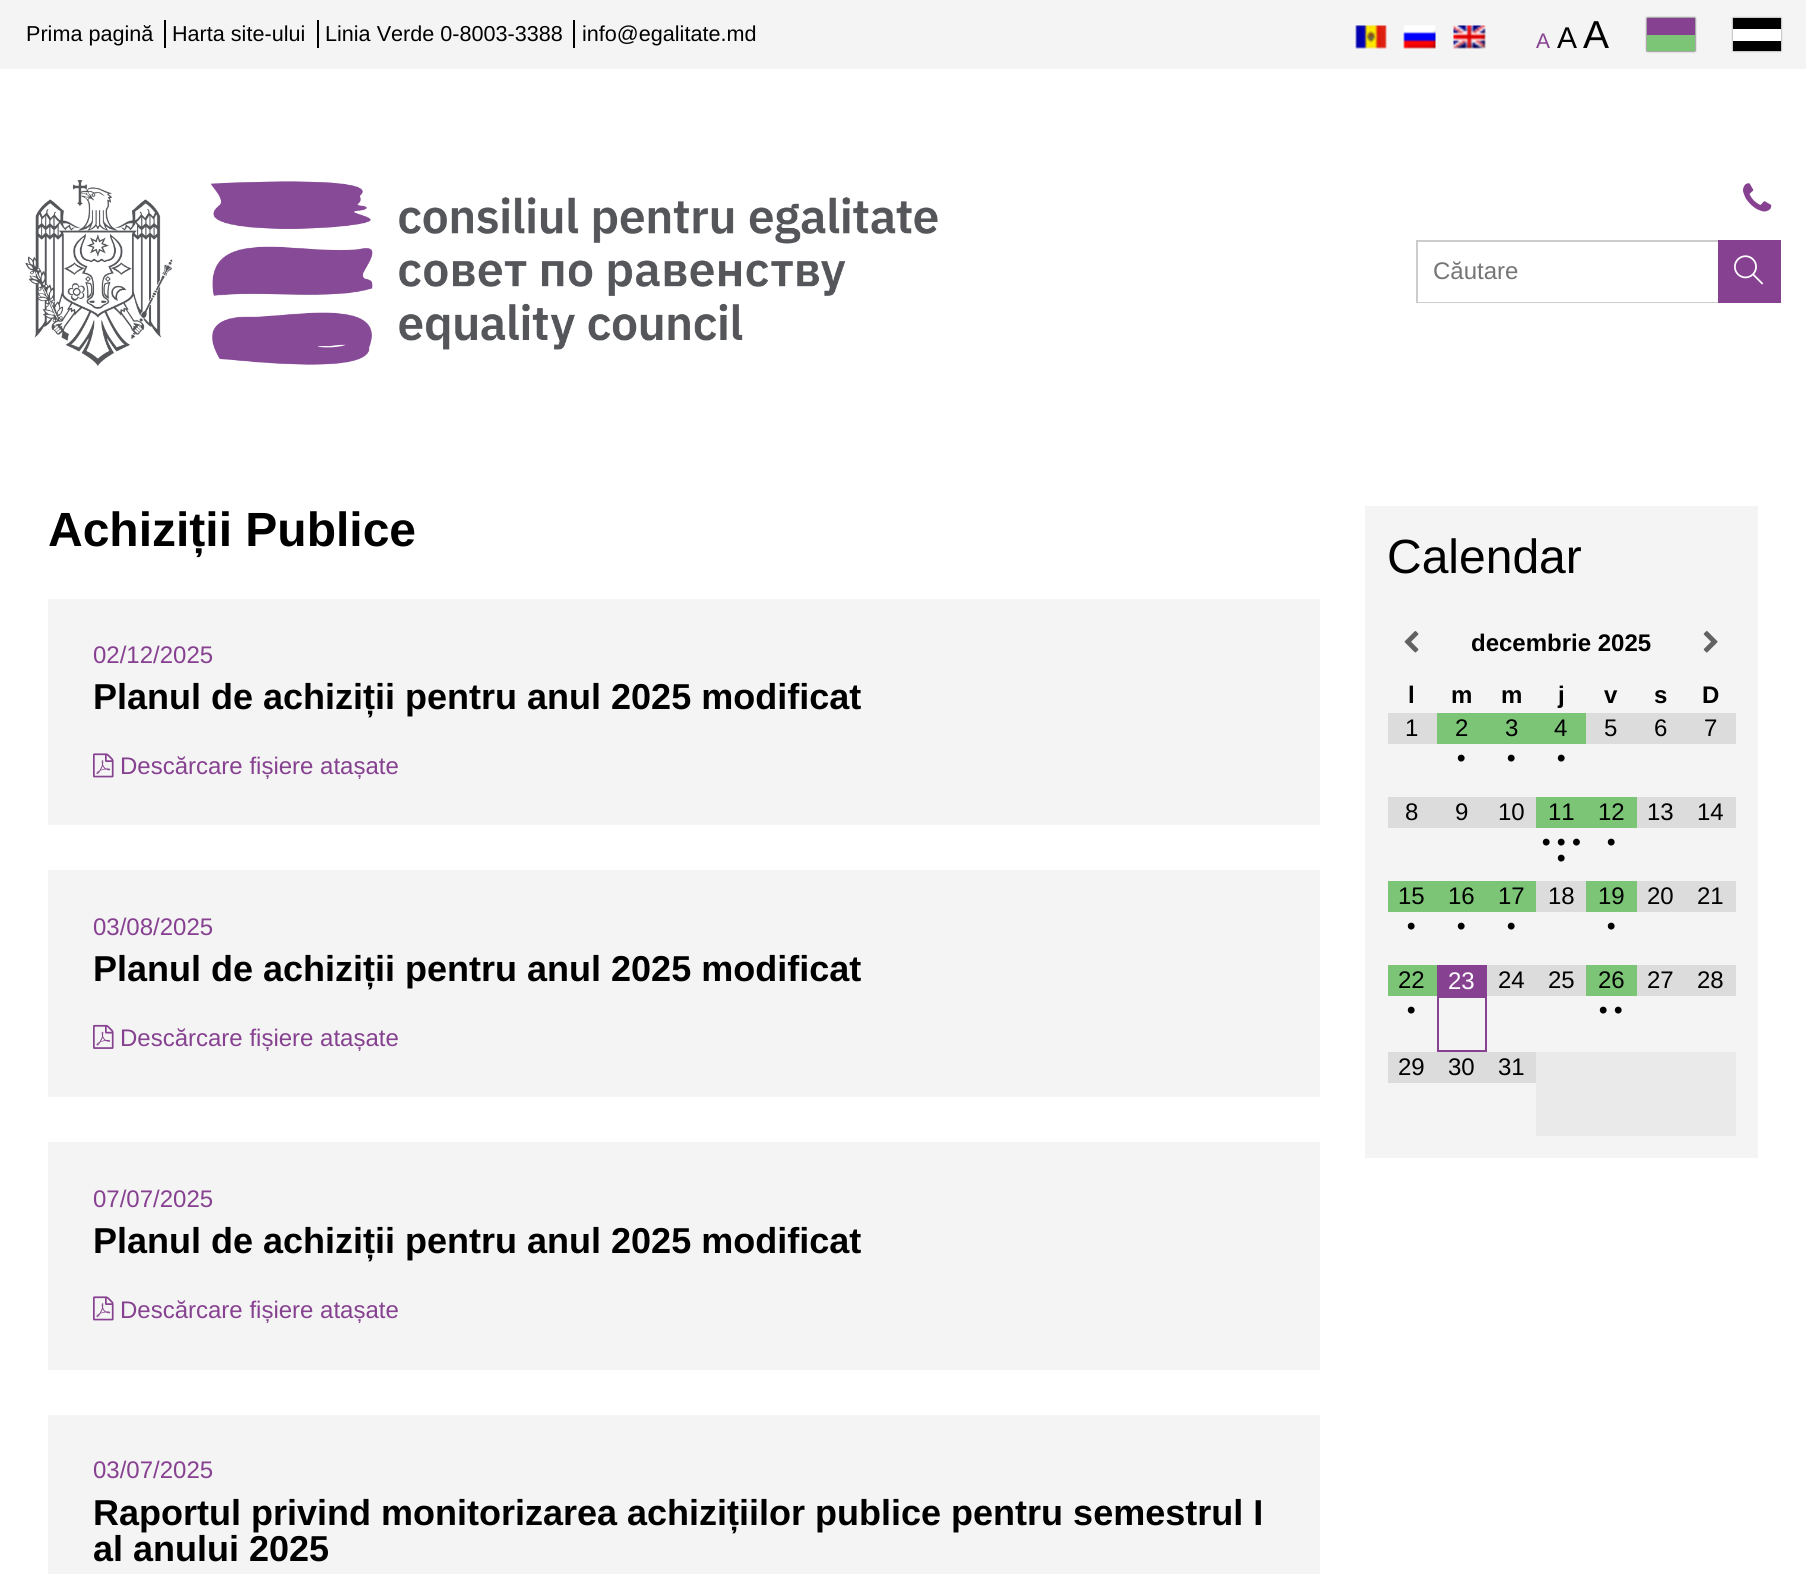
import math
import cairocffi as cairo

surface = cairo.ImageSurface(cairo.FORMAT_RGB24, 1806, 1574)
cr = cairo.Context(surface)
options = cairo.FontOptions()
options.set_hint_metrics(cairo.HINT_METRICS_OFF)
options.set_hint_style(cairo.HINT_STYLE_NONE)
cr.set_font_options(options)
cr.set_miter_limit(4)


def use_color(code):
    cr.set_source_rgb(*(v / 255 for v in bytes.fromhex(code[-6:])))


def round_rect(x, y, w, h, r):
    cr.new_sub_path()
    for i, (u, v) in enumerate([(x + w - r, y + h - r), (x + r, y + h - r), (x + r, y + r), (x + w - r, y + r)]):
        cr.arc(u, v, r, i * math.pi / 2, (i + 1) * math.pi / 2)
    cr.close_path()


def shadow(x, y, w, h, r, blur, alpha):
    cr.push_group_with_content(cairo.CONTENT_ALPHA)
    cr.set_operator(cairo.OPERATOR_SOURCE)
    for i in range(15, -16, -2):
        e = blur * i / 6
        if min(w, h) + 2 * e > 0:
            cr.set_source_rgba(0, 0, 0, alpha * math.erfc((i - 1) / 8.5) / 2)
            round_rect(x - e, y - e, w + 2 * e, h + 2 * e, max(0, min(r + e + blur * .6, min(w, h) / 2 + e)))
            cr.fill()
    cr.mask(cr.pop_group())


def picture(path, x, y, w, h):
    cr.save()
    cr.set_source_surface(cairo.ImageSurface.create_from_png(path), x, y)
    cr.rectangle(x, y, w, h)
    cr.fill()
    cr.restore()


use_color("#ffffff")
cr.paint()
use_color("#f4f4f4")
cr.rectangle(0, 0, 1806, 69)
cr.fill()
cr.select_font_face("Liberation Sans")
cr.set_font_size(21.6)
use_color("#000000")
cr.move_to(26, 41)
cr.show_text("Prima pagină")
cr.rectangle(164, 20, 2, 28)
cr.fill()
cr.move_to(172, 41)
cr.show_text("Harta site-ului")
cr.rectangle(317, 20, 2, 28)
cr.fill()
cr.move_to(325, 41)
cr.show_text("Linia Verde 0-8003-3388")
cr.rectangle(573, 20, 2, 28)
cr.fill()
cr.move_to(582, 41)
cr.show_text("info@egalitate.md")
picture("img1.png", 1355, 25, 32, 24)
picture("img2.png", 1403, 25, 33, 24)
picture("img3.png", 1453, 25, 33, 24)
cr.set_font_size(21)
use_color("#874191")
cr.move_to(1536, 48)
cr.show_text("A")
cr.set_font_size(30)
use_color("#000000")
cr.move_to(1557, 48)
cr.show_text("A")
cr.set_font_size(39)
cr.move_to(1583, 48)
cr.show_text("A")
use_color("#000000")
shadow(1647, 18, 48, 33, 0, 1, 0.5)
shadow(1647, 18, 48, 33, 0, 1, 0.5)
use_color("#874191")
cr.rectangle(1647, 18, 48, 17)
cr.fill()
use_color("#7cc576")
cr.rectangle(1647, 35, 48, 16)
cr.fill()
use_color("#000000")
shadow(1733, 18, 48, 33, 0, 1, 0.5)
use_color("#000000")
cr.rectangle(1733, 18, 48, 11)
cr.fill()
use_color("#ffffff")
cr.rectangle(1733, 29, 48, 12)
cr.fill()
use_color("#000000")
cr.rectangle(1733, 41, 48, 10)
cr.fill()
picture("img4.png", 25, 180, 913, 186)
picture("img5.png", 1743, 183, 29, 29)
cr.rectangle(1417, 241, 301, 61)
use_color("#cccccc")
cr.stroke()
use_color("#ffffff")
cr.rectangle(1418, 242, 300, 60)
cr.fill()
cr.set_font_size(24)
use_color("#757575")
cr.move_to(1433, 279)
cr.show_text("Căutare")
use_color("#874191")
cr.rectangle(1718, 240, 63, 63)
cr.fill()
picture("img6.png", 1734, 255, 30, 30)
cr.select_font_face("Liberation Sans", cairo.FONT_SLANT_NORMAL, cairo.FONT_WEIGHT_BOLD)
cr.set_font_size(48)
use_color("#000000")
cr.move_to(48, 546)
cr.show_text("Achiziții Publice")
use_color("#f4f4f4")
cr.rectangle(48, 599, 1272, 226)
cr.fill()
cr.select_font_face("Liberation Sans")
cr.set_font_size(24)
use_color("#874191")
cr.move_to(93, 663)
cr.show_text("02/12/2025")
cr.select_font_face("Liberation Sans", cairo.FONT_SLANT_NORMAL, cairo.FONT_WEIGHT_BOLD)
cr.set_font_size(36)
use_color("#000000")
cr.move_to(93, 709)
cr.show_text("Planul de achiziții pentru anul 2025 modificat")
picture("img7.png", 93, 753, 21, 25)
cr.select_font_face("Liberation Sans")
cr.set_font_size(24)
use_color("#874191")
cr.move_to(120, 774)
cr.show_text("Descărcare fișiere atașate")
use_color("#f4f4f4")
cr.rectangle(48, 870, 1272, 227)
cr.fill()
use_color("#874191")
cr.move_to(93, 935)
cr.show_text("03/08/2025")
cr.select_font_face("Liberation Sans", cairo.FONT_SLANT_NORMAL, cairo.FONT_WEIGHT_BOLD)
cr.set_font_size(36)
use_color("#000000")
cr.move_to(93, 981)
cr.show_text("Planul de achiziții pentru anul 2025 modificat")
picture("img8.png", 93, 1024, 21, 25)
cr.select_font_face("Liberation Sans")
cr.set_font_size(24)
use_color("#874191")
cr.move_to(120, 1046)
cr.show_text("Descărcare fișiere atașate")
use_color("#f4f4f4")
cr.rectangle(48, 1142, 1272, 228)
cr.fill()
use_color("#874191")
cr.move_to(93, 1207)
cr.show_text("07/07/2025")
cr.select_font_face("Liberation Sans", cairo.FONT_SLANT_NORMAL, cairo.FONT_WEIGHT_BOLD)
cr.set_font_size(36)
use_color("#000000")
cr.move_to(93, 1253)
cr.show_text("Planul de achiziții pentru anul 2025 modificat")
picture("img7.png", 93, 1296, 21, 25)
cr.select_font_face("Liberation Sans")
cr.set_font_size(24)
use_color("#874191")
cr.move_to(120, 1318)
cr.show_text("Descărcare fișiere atașate")
use_color("#f4f4f4")
cr.rectangle(48, 1415, 1272, 159)
cr.fill()
use_color("#874191")
cr.move_to(93, 1478)
cr.show_text("03/07/2025")
cr.select_font_face("Liberation Sans", cairo.FONT_SLANT_NORMAL, cairo.FONT_WEIGHT_BOLD)
cr.set_font_size(36)
use_color("#000000")
cr.move_to(93, 1525)
cr.show_text("Raportul privind monitorizarea achizițiilor publice pentru semestrul I")
cr.move_to(93, 1561)
cr.show_text("al anului 2025")
use_color("#f4f4f4")
cr.rectangle(1365, 506, 393, 652)
cr.fill()
cr.select_font_face("Liberation Sans")
cr.set_font_size(48)
use_color("#000000")
cr.move_to(1387, 573)
cr.show_text("Calendar")
picture("img9.png", 1404, 631, 15, 22)
cr.select_font_face("Liberation Sans", cairo.FONT_SLANT_NORMAL, cairo.FONT_WEIGHT_BOLD)
cr.set_font_size(24)
cr.move_to(1471, 651)
cr.show_text("decembrie 2025")
picture("img10.png", 1703, 631, 15, 22)
cr.move_to(1408, 703)
cr.show_text("l")
cr.move_to(1451, 703)
cr.show_text("m")
cr.move_to(1501, 703)
cr.show_text("m")
cr.move_to(1558, 703)
cr.show_text("j")
cr.move_to(1604, 703)
cr.show_text("v")
cr.move_to(1654, 703)
cr.show_text("s")
cr.move_to(1702, 703)
cr.show_text("D")
use_color("#dcdcdc")
cr.rectangle(1388, 713, 49, 31)
cr.fill()
cr.select_font_face("Liberation Sans")
use_color("#000000")
cr.move_to(1405, 736)
cr.show_text("1")
use_color("#7cc576")
cr.rectangle(1437, 713, 149, 31)
cr.fill()
use_color("#000000")
cr.move_to(1455, 736)
cr.show_text("2")
cr.select_font_face("Liberation Sans", cairo.FONT_SLANT_NORMAL, cairo.FONT_WEIGHT_BOLD)
cr.move_to(1457, 766)
cr.show_text("•")
cr.select_font_face("Liberation Sans")
cr.move_to(1505, 736)
cr.show_text("3")
cr.select_font_face("Liberation Sans", cairo.FONT_SLANT_NORMAL, cairo.FONT_WEIGHT_BOLD)
cr.move_to(1507, 766)
cr.show_text("•")
cr.select_font_face("Liberation Sans")
cr.move_to(1554, 736)
cr.show_text("4")
cr.select_font_face("Liberation Sans", cairo.FONT_SLANT_NORMAL, cairo.FONT_WEIGHT_BOLD)
cr.move_to(1557, 766)
cr.show_text("•")
use_color("#dcdcdc")
cr.rectangle(1586, 713, 150, 31)
cr.fill()
cr.select_font_face("Liberation Sans")
use_color("#000000")
cr.move_to(1604, 736)
cr.show_text("5")
cr.move_to(1654, 736)
cr.show_text("6")
cr.move_to(1704, 736)
cr.show_text("7")
use_color("#dcdcdc")
cr.rectangle(1388, 797, 148, 31)
cr.fill()
use_color("#000000")
cr.move_to(1405, 820)
cr.show_text("8")
cr.move_to(1455, 820)
cr.show_text("9")
cr.move_to(1498, 820)
cr.show_text("10")
use_color("#7cc576")
cr.rectangle(1536, 797, 101, 31)
cr.fill()
use_color("#000000")
cr.move_to(1548, 820)
cr.show_text("11")
cr.select_font_face("Liberation Sans", cairo.FONT_SLANT_NORMAL, cairo.FONT_WEIGHT_BOLD)
cr.move_to(1542, 850)
cr.show_text("• • •")
cr.move_to(1557, 866)
cr.show_text("•")
cr.select_font_face("Liberation Sans")
cr.move_to(1598, 820)
cr.show_text("12")
cr.select_font_face("Liberation Sans", cairo.FONT_SLANT_NORMAL, cairo.FONT_WEIGHT_BOLD)
cr.move_to(1607, 850)
cr.show_text("•")
use_color("#dcdcdc")
cr.rectangle(1637, 797, 99, 31)
cr.fill()
cr.select_font_face("Liberation Sans")
use_color("#000000")
cr.move_to(1647, 820)
cr.show_text("13")
cr.move_to(1697, 820)
cr.show_text("14")
use_color("#7cc576")
cr.rectangle(1388, 881, 148, 31)
cr.fill()
use_color("#000000")
cr.move_to(1398, 904)
cr.show_text("15")
cr.select_font_face("Liberation Sans", cairo.FONT_SLANT_NORMAL, cairo.FONT_WEIGHT_BOLD)
cr.move_to(1407, 934)
cr.show_text("•")
cr.select_font_face("Liberation Sans")
cr.move_to(1448, 904)
cr.show_text("16")
cr.select_font_face("Liberation Sans", cairo.FONT_SLANT_NORMAL, cairo.FONT_WEIGHT_BOLD)
cr.move_to(1457, 934)
cr.show_text("•")
cr.select_font_face("Liberation Sans")
cr.move_to(1498, 904)
cr.show_text("17")
cr.select_font_face("Liberation Sans", cairo.FONT_SLANT_NORMAL, cairo.FONT_WEIGHT_BOLD)
cr.move_to(1507, 934)
cr.show_text("•")
use_color("#dcdcdc")
cr.rectangle(1536, 881, 50, 31)
cr.fill()
cr.select_font_face("Liberation Sans")
use_color("#000000")
cr.move_to(1548, 904)
cr.show_text("18")
use_color("#7cc576")
cr.rectangle(1586, 881, 51, 31)
cr.fill()
use_color("#000000")
cr.move_to(1598, 904)
cr.show_text("19")
cr.select_font_face("Liberation Sans", cairo.FONT_SLANT_NORMAL, cairo.FONT_WEIGHT_BOLD)
cr.move_to(1607, 934)
cr.show_text("•")
use_color("#dcdcdc")
cr.rectangle(1637, 881, 99, 31)
cr.fill()
cr.select_font_face("Liberation Sans")
use_color("#000000")
cr.move_to(1647, 904)
cr.show_text("20")
cr.move_to(1697, 904)
cr.show_text("21")
use_color("#7cc576")
cr.rectangle(1388, 965, 49, 31)
cr.fill()
use_color("#000000")
cr.move_to(1398, 988)
cr.show_text("22")
cr.select_font_face("Liberation Sans", cairo.FONT_SLANT_NORMAL, cairo.FONT_WEIGHT_BOLD)
cr.move_to(1407, 1018)
cr.show_text("•")
cr.rectangle(1438, 966, 48, 85)
use_color("#874191")
cr.stroke()
cr.rectangle(1439, 967, 46, 31)
cr.fill()
cr.select_font_face("Liberation Sans")
use_color("#ffffff")
cr.move_to(1448, 989)
cr.show_text("23")
use_color("#dcdcdc")
cr.rectangle(1487, 965, 99, 31)
cr.fill()
use_color("#000000")
cr.move_to(1498, 988)
cr.show_text("24")
cr.move_to(1548, 988)
cr.show_text("25")
use_color("#7cc576")
cr.rectangle(1586, 965, 51, 31)
cr.fill()
use_color("#000000")
cr.move_to(1598, 988)
cr.show_text("26")
cr.select_font_face("Liberation Sans", cairo.FONT_SLANT_NORMAL, cairo.FONT_WEIGHT_BOLD)
cr.move_to(1599, 1018)
cr.show_text("• •")
use_color("#dcdcdc")
cr.rectangle(1637, 965, 99, 31)
cr.fill()
cr.select_font_face("Liberation Sans")
use_color("#000000")
cr.move_to(1647, 988)
cr.show_text("27")
cr.move_to(1697, 988)
cr.show_text("28")
use_color("#dcdcdc")
cr.rectangle(1388, 1052, 148, 31)
cr.fill()
use_color("#000000")
cr.move_to(1398, 1075)
cr.show_text("29")
cr.move_to(1448, 1075)
cr.show_text("30")
cr.move_to(1498, 1075)
cr.show_text("31")
use_color("#eaeaea")
cr.rectangle(1536, 1052, 200, 84)
cr.fill()
surface.write_to_png("result.png")
